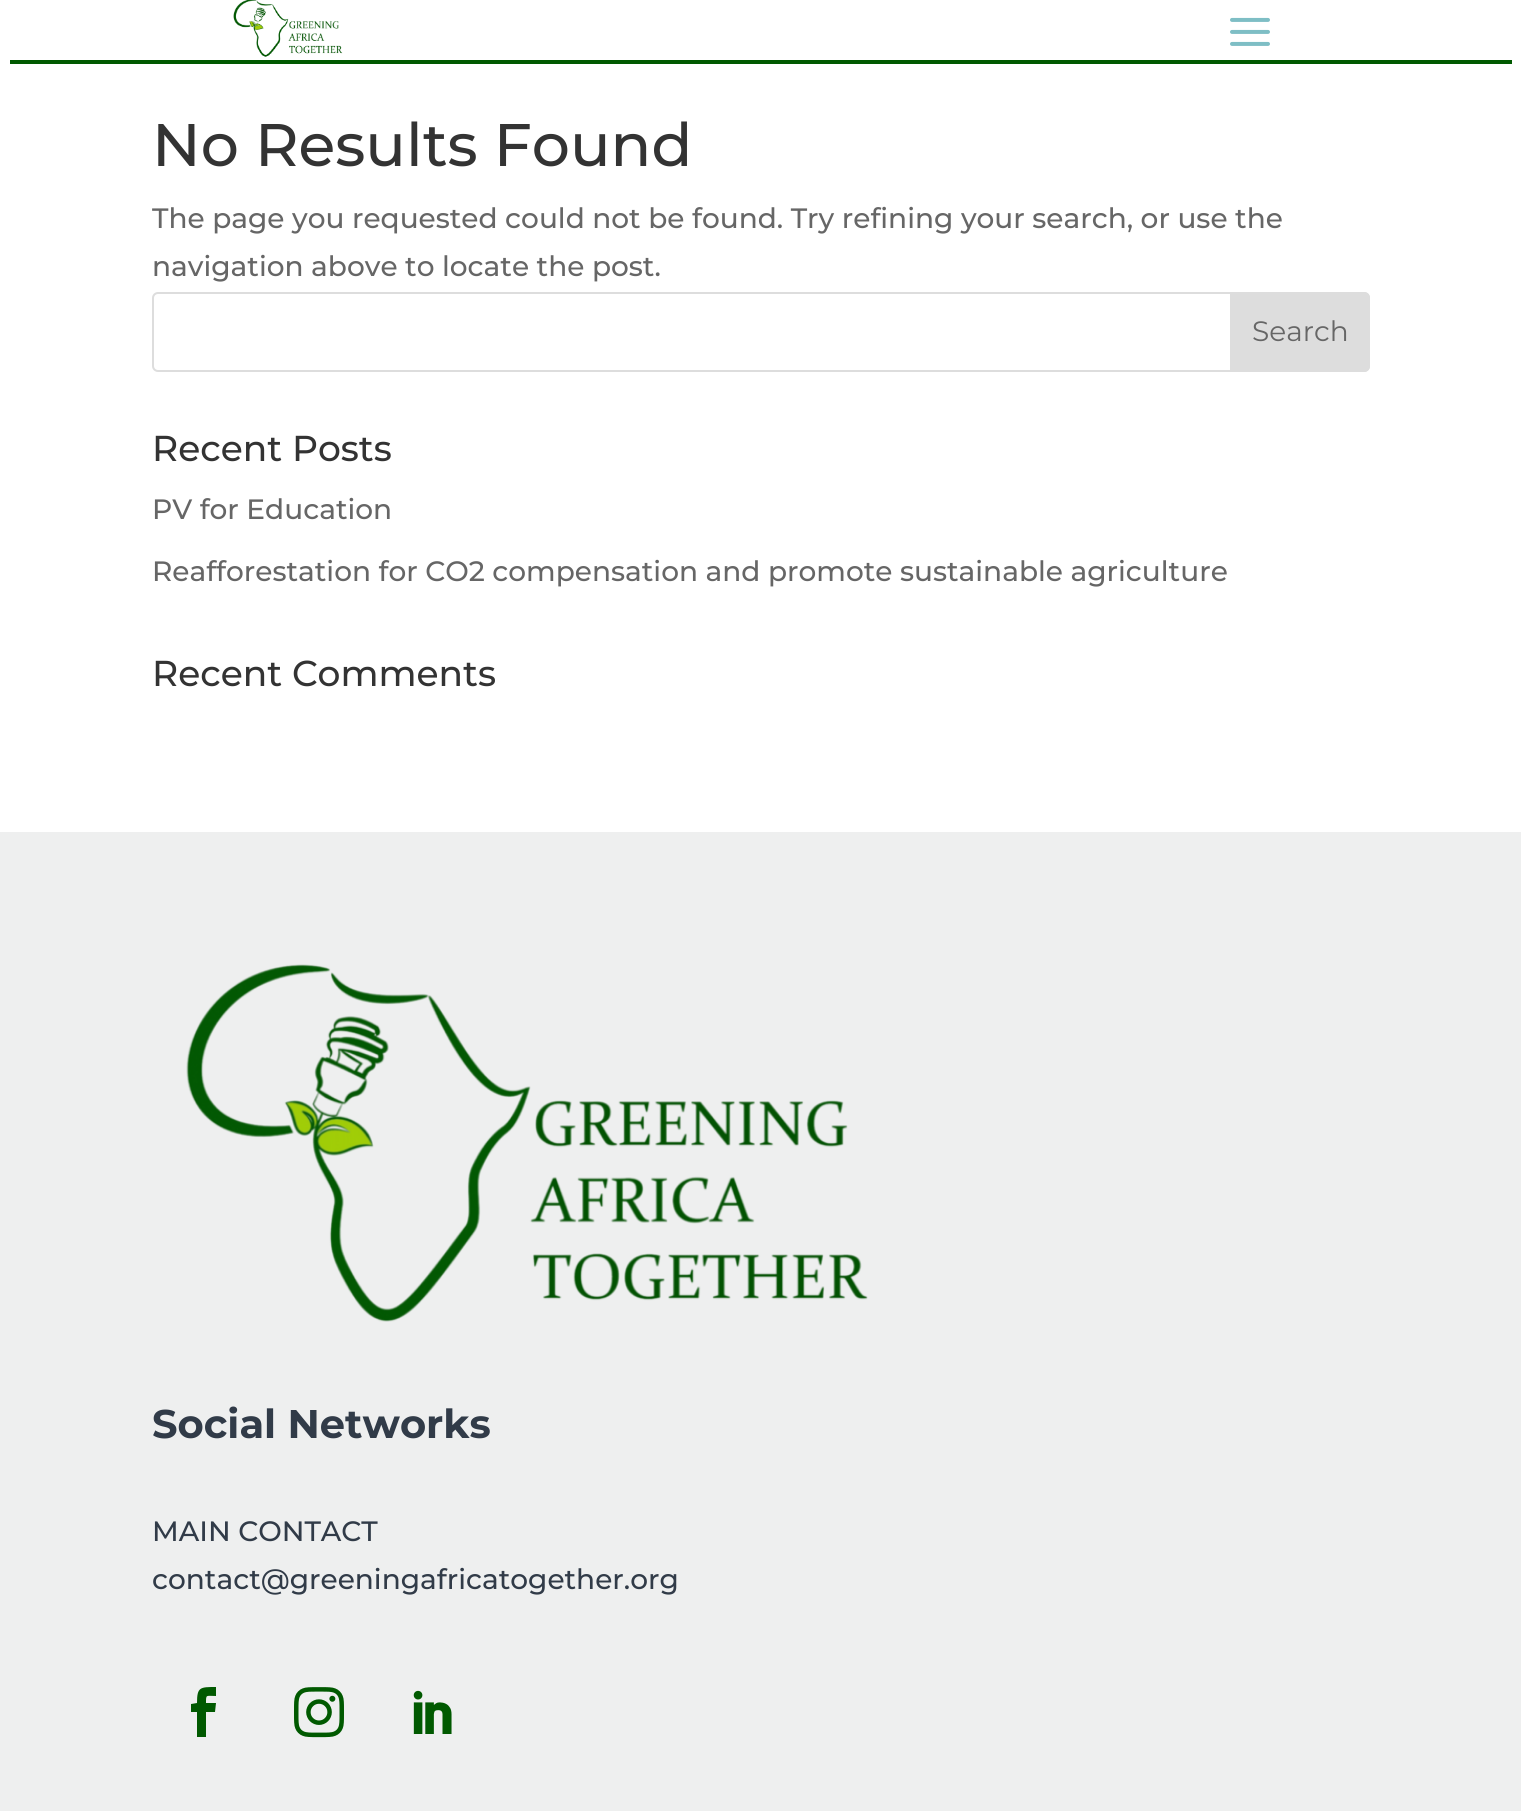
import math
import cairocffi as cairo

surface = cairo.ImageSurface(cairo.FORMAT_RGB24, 1521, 1811)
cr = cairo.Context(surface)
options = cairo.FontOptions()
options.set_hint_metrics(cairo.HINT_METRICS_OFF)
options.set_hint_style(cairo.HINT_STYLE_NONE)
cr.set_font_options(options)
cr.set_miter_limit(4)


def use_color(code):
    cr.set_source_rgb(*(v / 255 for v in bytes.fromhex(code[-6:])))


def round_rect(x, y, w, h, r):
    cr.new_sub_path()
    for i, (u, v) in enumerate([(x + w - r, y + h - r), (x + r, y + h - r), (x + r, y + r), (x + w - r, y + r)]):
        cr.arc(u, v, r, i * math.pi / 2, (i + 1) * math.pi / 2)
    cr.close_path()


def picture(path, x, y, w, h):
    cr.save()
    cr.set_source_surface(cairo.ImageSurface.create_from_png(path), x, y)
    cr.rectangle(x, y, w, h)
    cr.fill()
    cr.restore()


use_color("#ffffff")
cr.paint()
use_color("#005900")
cr.rectangle(10, 60, 1502, 4)
cr.fill()
picture("img1.png", 233, 0, 110, 57)
picture("img2.png", 1230, 17, 40, 29)
cr.select_font_face("Montserrat Medium")
cr.set_font_size(60)
use_color("#333333")
cr.move_to(152, 166)
cr.show_text("No Results Found")
cr.set_font_size(28)
use_color("#666666")
cr.move_to(152, 228)
cr.show_text("The page you requested could not be found. Try refining your search, or use the")
cr.move_to(152, 276)
cr.show_text("navigation above to locate the post.")
round_rect(153, 293, 1216, 78, 5)
use_color("#dddddd")
cr.stroke()
cr.new_path()
cr.move_to(1231, 293)
cr.line_to(1364, 293)
cr.curve_to(1367, 293, 1369, 295, 1369, 298)
cr.line_to(1369, 366)
cr.curve_to(1369, 369, 1367, 371, 1364, 371)
cr.line_to(1231, 371)
cr.close_path()
cr.fill_preserve()
cr.stroke()
cr.select_font_face("Montserrat")
use_color("#666666")
cr.move_to(1252, 341)
cr.show_text("Search")
cr.select_font_face("Montserrat Medium")
cr.set_font_size(36)
use_color("#333333")
cr.move_to(152, 461)
cr.show_text("Recent Posts")
cr.set_font_size(28)
use_color("#666666")
cr.move_to(152, 519)
cr.show_text("PV for Education")
cr.move_to(152, 581)
cr.show_text("Reafforestation for CO2 compensation and promote sustainable agriculture")
cr.set_font_size(36)
use_color("#333333")
cr.move_to(152, 686)
cr.show_text("Recent Comments")
use_color("#eeefef")
cr.rectangle(0, 832, 1521, 979)
cr.fill()
picture("img3.png", 186, 964, 682, 358)
cr.select_font_face("Montserrat", cairo.FONT_SLANT_NORMAL, cairo.FONT_WEIGHT_BOLD)
cr.set_font_size(40)
use_color("#313b48")
cr.move_to(152, 1438)
cr.show_text("Social Networks")
cr.select_font_face("Montserrat Medium")
cr.set_font_size(28)
cr.move_to(152, 1541)
cr.show_text("MAIN CONTACT")
cr.move_to(152, 1589)
cr.show_text("contact@greeningafricatogether.org")
use_color("#005900")
cr.new_path()
cr.move_to(197, 1737)
cr.line_to(206, 1737)
cr.line_to(206, 1712)
cr.line_to(215, 1712)
cr.line_to(216, 1703)
cr.line_to(206, 1703)
cr.curve_to(206, 1694, 206, 1696, 216, 1696)
cr.line_to(216, 1687)
cr.curve_to(200, 1687, 197, 1687, 197, 1703)
cr.line_to(191, 1704)
cr.line_to(191, 1712)
cr.line_to(197, 1712)
cr.close_path()
cr.fill()
picture("img4.png", 294, 1687, 50, 51)
picture("img5.png", 413, 1690, 39, 44)
surface.write_to_png("result.png")
